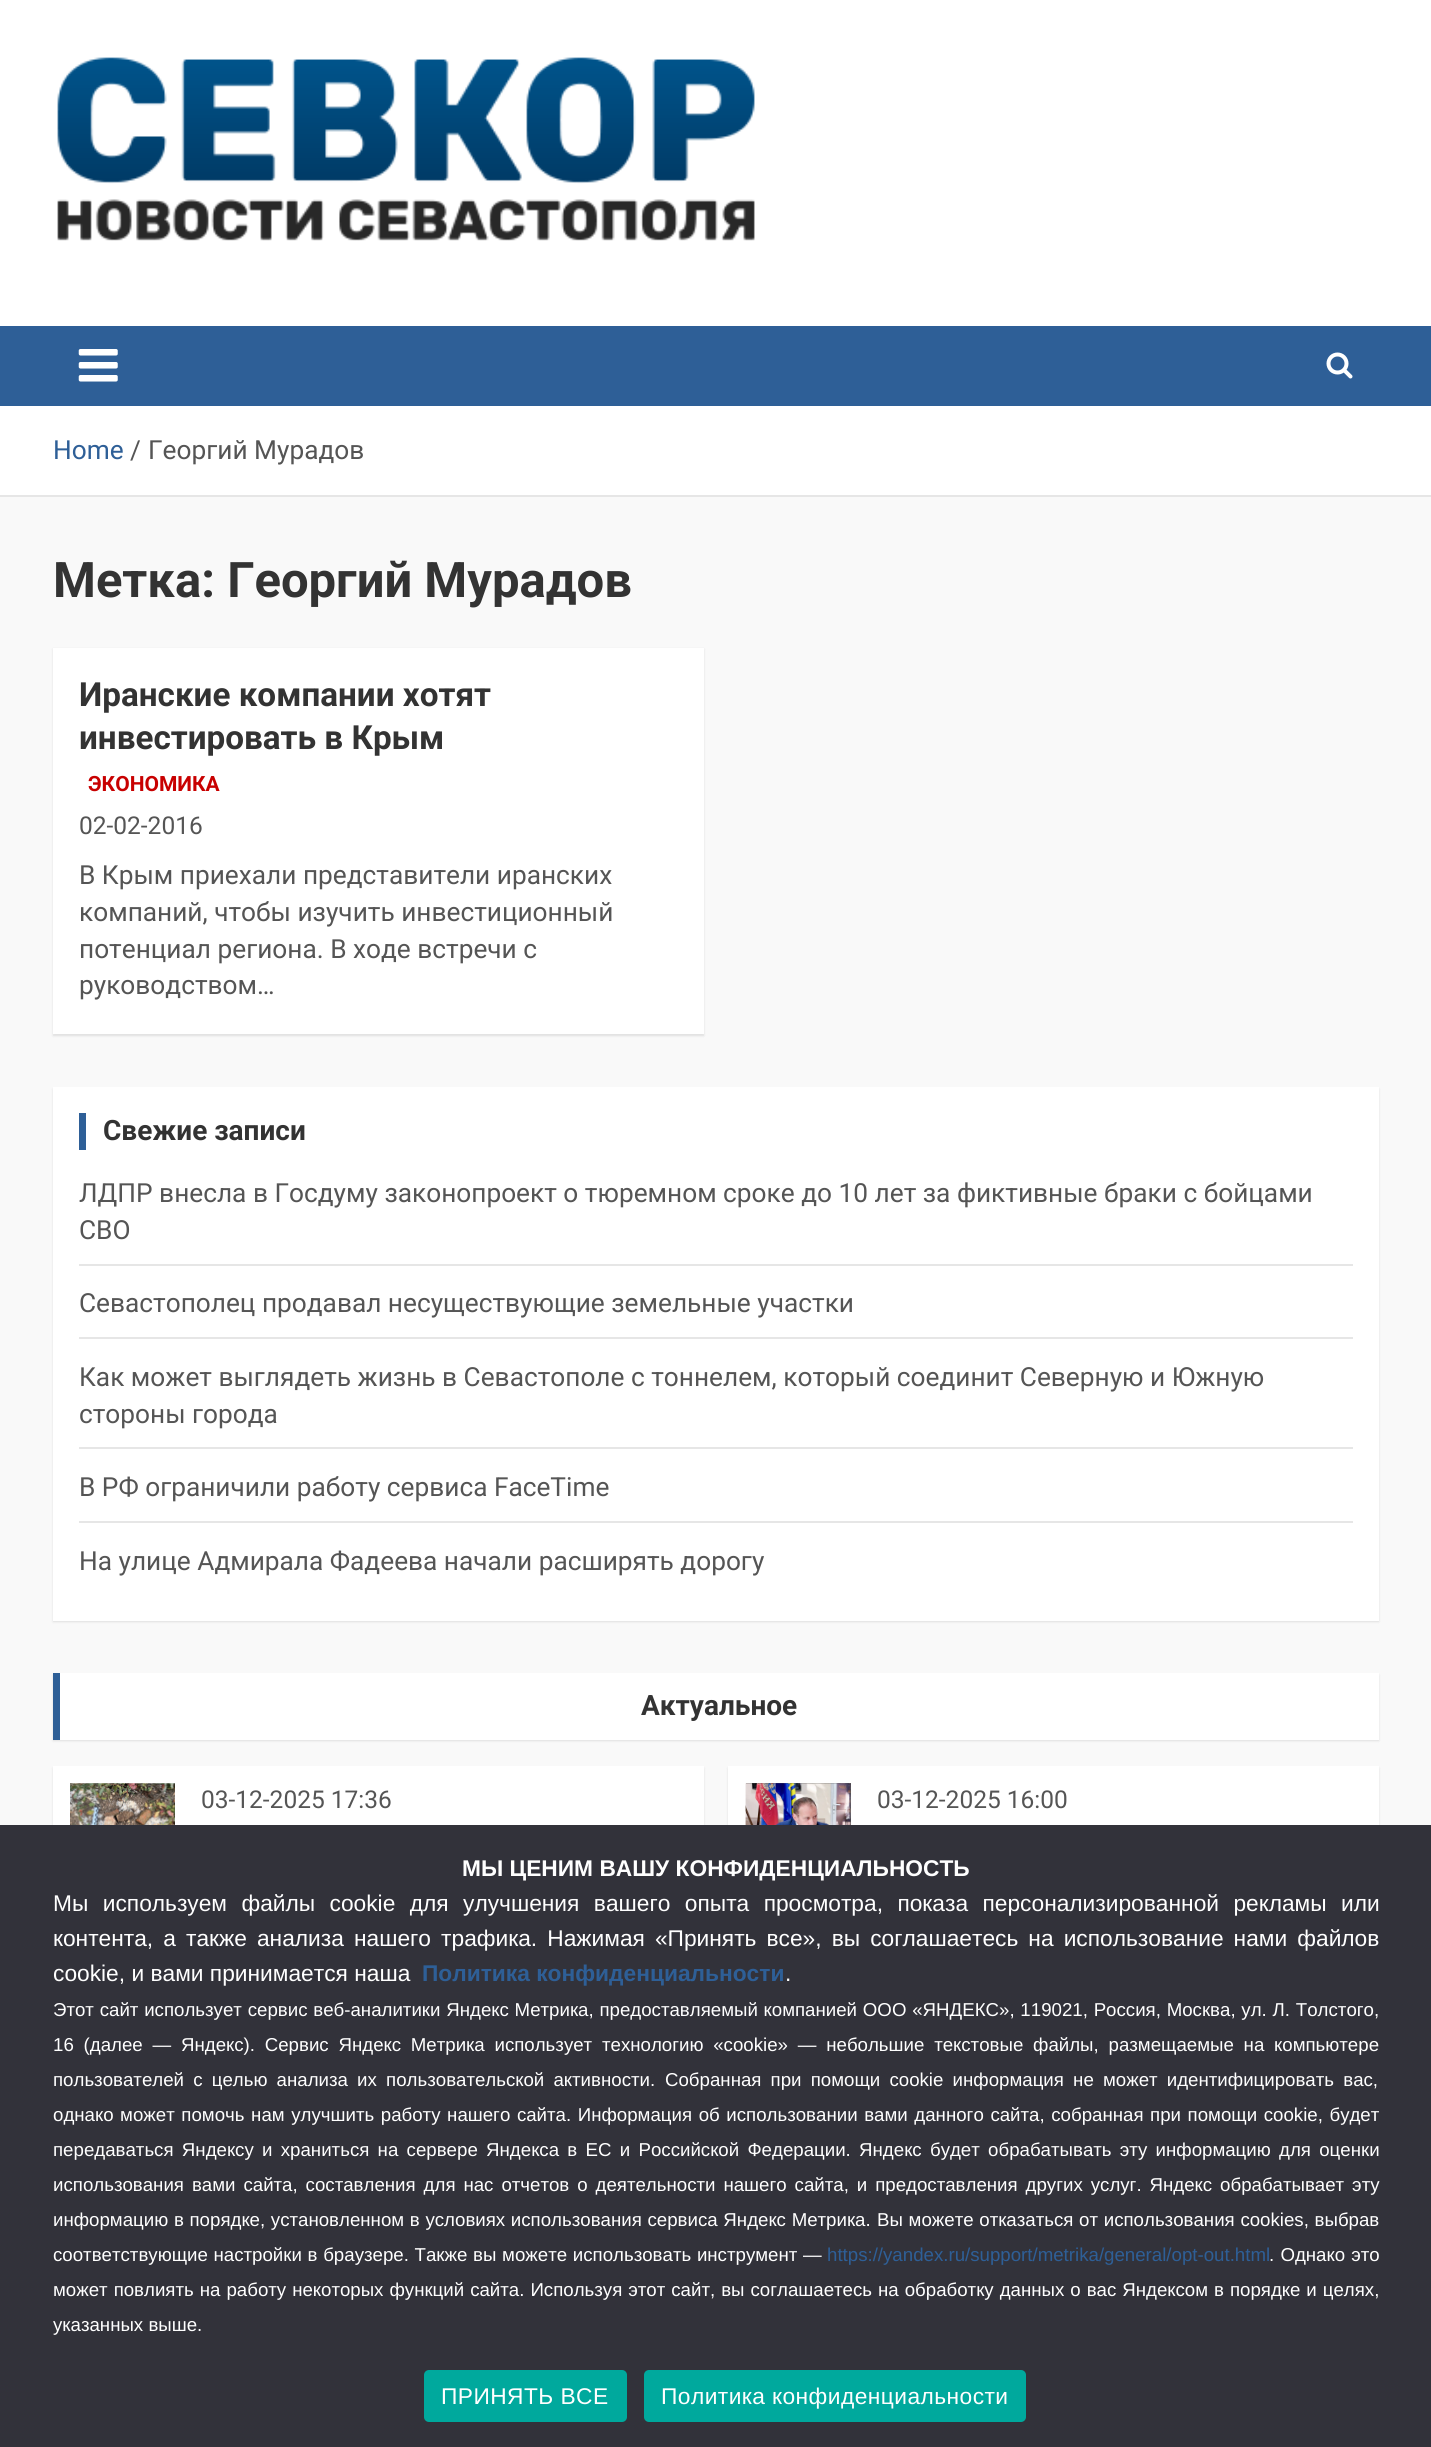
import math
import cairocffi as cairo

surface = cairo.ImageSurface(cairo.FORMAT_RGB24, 1431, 2447)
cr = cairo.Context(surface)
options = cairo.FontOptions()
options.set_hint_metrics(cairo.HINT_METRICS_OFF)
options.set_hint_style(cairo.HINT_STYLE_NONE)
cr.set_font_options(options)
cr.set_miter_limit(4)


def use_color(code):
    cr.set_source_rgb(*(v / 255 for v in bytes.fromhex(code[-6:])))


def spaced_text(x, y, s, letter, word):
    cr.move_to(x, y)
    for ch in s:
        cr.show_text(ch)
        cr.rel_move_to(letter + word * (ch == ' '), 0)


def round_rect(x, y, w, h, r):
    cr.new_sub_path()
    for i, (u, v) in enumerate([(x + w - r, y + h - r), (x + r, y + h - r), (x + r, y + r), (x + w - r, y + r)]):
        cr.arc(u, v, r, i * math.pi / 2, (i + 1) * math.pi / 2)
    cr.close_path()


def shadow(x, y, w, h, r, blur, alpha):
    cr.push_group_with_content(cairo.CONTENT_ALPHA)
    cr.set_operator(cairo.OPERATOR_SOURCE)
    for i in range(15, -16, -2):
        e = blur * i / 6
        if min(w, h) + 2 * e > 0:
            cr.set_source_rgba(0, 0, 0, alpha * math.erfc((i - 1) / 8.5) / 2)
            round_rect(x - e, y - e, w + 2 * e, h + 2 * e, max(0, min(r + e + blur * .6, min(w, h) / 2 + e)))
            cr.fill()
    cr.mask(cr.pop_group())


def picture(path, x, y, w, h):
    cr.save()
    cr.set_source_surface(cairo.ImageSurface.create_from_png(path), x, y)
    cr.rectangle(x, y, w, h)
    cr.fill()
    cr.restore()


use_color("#f9f9f9")
cr.paint()
use_color("#ffffff")
cr.rectangle(0, 0, 1431, 326)
cr.fill()
picture("img1.png", 57, 57, 698, 184)
use_color("#2e5f97")
cr.rectangle(0, 326, 1431, 80)
cr.fill()
picture("img2.png", 78, 349, 40, 33)
picture("img3.png", 1326, 352, 27, 27)
use_color("#ffffff")
cr.rectangle(0, 406, 1431, 89)
cr.fill()
use_color("#e6e6e6")
cr.rectangle(0, 495, 1431, 2)
cr.fill()
cr.select_font_face("Roboto")
cr.set_font_size(26.25)
use_color("#2e5f97")
cr.move_to(53, 459)
cr.show_text("Home")
use_color("#555555")
cr.move_to(130, 459)
cr.show_text("/")
cr.move_to(148, 459)
cr.show_text("Георгий Мурадов")
cr.select_font_face("Roboto", cairo.FONT_SLANT_NORMAL, cairo.FONT_WEIGHT_BOLD)
cr.set_font_size(49)
use_color("#333333")
cr.move_to(53, 597)
cr.show_text("Метка: Георгий Мурадов")
use_color("#000000")
shadow(53, 649, 651, 387, 0, 1, 0.1)
use_color("#ffffff")
cr.rectangle(53, 648, 651, 386)
cr.fill()
cr.set_font_size(33.25)
use_color("#333333")
cr.move_to(79, 706)
cr.show_text("Иранские компании хотят")
cr.move_to(79, 749)
cr.show_text("инвестировать в Крым")
cr.set_font_size(21)
use_color("#c80000")
cr.move_to(88, 791)
cr.show_text("ЭКОНОМИКА")
cr.select_font_face("Roboto")
cr.set_font_size(24.5)
use_color("#555555")
cr.move_to(79, 834)
cr.show_text("02-02-2016")
cr.set_font_size(26.25)
cr.move_to(79, 884)
cr.show_text("В Крым приехали представители иранских")
cr.move_to(79, 921)
cr.show_text("компаний, чтобы изучить инвестиционный")
cr.move_to(79, 958)
cr.show_text("потенциал региона. В ходе встречи с")
cr.move_to(79, 994)
cr.show_text("руководством…")
use_color("#000000")
shadow(53, 1089, 1326, 533, 0, 1, 0.1)
use_color("#ffffff")
cr.rectangle(53, 1087, 1326, 534)
cr.fill()
use_color("#2e5f97")
cr.rectangle(79, 1113, 7, 37)
cr.fill()
cr.select_font_face("Roboto", cairo.FONT_SLANT_NORMAL, cairo.FONT_WEIGHT_BOLD)
cr.set_font_size(28)
use_color("#333333")
cr.move_to(103, 1140)
cr.show_text("Свежие записи")
use_color("#e6e6e6")
cr.rectangle(79, 1264, 1274, 2)
cr.fill()
cr.select_font_face("Roboto")
cr.set_font_size(26.25)
use_color("#555555")
cr.move_to(79, 1202)
cr.show_text("ЛДПР внесла в Госдуму законопроект о тюремном сроке до 10 лет за фиктивные браки с бойцами")
cr.move_to(79, 1239)
cr.show_text("СВО")
use_color("#e6e6e6")
cr.rectangle(79, 1337, 1274, 2)
cr.fill()
use_color("#555555")
cr.move_to(79, 1312)
cr.show_text("Севастополец продавал несуществующие земельные участки")
use_color("#e6e6e6")
cr.rectangle(79, 1447, 1274, 2)
cr.fill()
use_color("#555555")
cr.move_to(79, 1386)
cr.show_text("Как может выглядеть жизнь в Севастополе с тоннелем, который соединит Северную и Южную")
cr.move_to(79, 1423)
cr.show_text("стороны города")
use_color("#e6e6e6")
cr.rectangle(79, 1521, 1274, 2)
cr.fill()
use_color("#555555")
cr.move_to(79, 1496)
cr.show_text("В РФ ограничили работу сервиса FaceTime")
cr.move_to(79, 1570)
cr.show_text("На улице Адмирала Фадеева начали расширять дорогу")
use_color("#000000")
shadow(53, 1675, 1326, 66, 0, 1, 0.1)
use_color("#ffffff")
cr.rectangle(60, 1673, 1319, 67)
cr.fill()
use_color("#2e5f97")
cr.rectangle(53, 1673, 7, 67)
cr.fill()
cr.select_font_face("Roboto", cairo.FONT_SLANT_NORMAL, cairo.FONT_WEIGHT_BOLD)
cr.set_font_size(28)
use_color("#333333")
cr.move_to(641, 1715)
cr.show_text("Актуальное")
use_color("#000000")
shadow(53, 1768, 651, 178, 0, 1, 0.1)
use_color("#ffffff")
cr.rectangle(53, 1766, 651, 59)
cr.fill()
picture("img4.png", 70, 1783, 105, 42)
cr.select_font_face("Roboto")
cr.set_font_size(24.5)
use_color("#555555")
cr.move_to(201, 1808)
cr.show_text("03-12-2025 17:36")
use_color("#000000")
shadow(728, 1768, 651, 178, 0, 1, 0.1)
use_color("#ffffff")
cr.rectangle(728, 1766, 651, 59)
cr.fill()
use_color("#555555")
cr.rectangle(746, 1783, 105, 42)
cr.fill()
picture("img5.png", 745, 1783, 106, 42)
cr.move_to(877, 1808)
cr.show_text("03-12-2025 16:00")
use_color("#32323a")
cr.rectangle(0, 1825, 1431, 622)
cr.fill()
cr.select_font_face("Liberation Sans", cairo.FONT_SLANT_NORMAL, cairo.FONT_WEIGHT_BOLD)
cr.set_font_size(22.75)
use_color("#ffffff")
cr.move_to(462, 1876)
cr.show_text("МЫ ЦЕНИМ ВАШУ КОНФИДЕНЦИАЛЬНОСТЬ")
cr.select_font_face("Liberation Sans")
spaced_text(53, 1911, "Мы используем файлы cookie для улучшения вашего опыта просмотра, показа персонализированной рекламы или", 0, 8.1)
spaced_text(53, 1946, "контента, а также анализа нашего трафика. Нажимая «Принять все», вы соглашаетесь на использование нами файлов", 0, 3.75)
cr.move_to(53, 1981)
cr.show_text("cookie, и вами принимается наша")
cr.select_font_face("Liberation Sans", cairo.FONT_SLANT_NORMAL, cairo.FONT_WEIGHT_BOLD)
use_color("#2e5f97")
cr.move_to(422, 1981)
cr.show_text("Политика конфиденциальности")
cr.select_font_face("Liberation Sans")
use_color("#ffffff")
cr.move_to(785, 1981)
cr.show_text(".")
cr.set_font_size(18.67)
spaced_text(53, 2016, "Этот сайт использует сервис веб-аналитики Яндекс Метрика, предоставляемый компанией ООО «ЯНДЕКС», 119021, Россия, Москва, ул. Л. Толстого,", 0, 0.6)
spaced_text(53, 2051, "16 (далее — Яндекс). Сервис Яндекс Метрика использует технологию «cookie» — небольшие текстовые файлы, размещаемые на компьютере", 0, 4.6)
spaced_text(53, 2086, "пользователей с целью анализа их пользовательской активности.", 0, 4)
spaced_text(665, 2086, "Собранная при помощи cookie информация не может идентифицировать вас,", 0, 4)
spaced_text(53, 2121, "однако может помочь нам улучшить работу нашего сайта. Информация об использовании вами данного сайта, собранная при помощи cookie, будет", 0, 1.4)
spaced_text(53, 2156, "передаваться Яндексу и храниться на сервере Яндекса в ЕС и Российской Федерации. Яндекс будет обрабатывать эту информацию для оценки", 0, 3.1)
spaced_text(53, 2191, "использования вами сайта, составления для нас отчетов о деятельности нашего сайта, и предоставления других услуг. Яндекс обрабатывает эту", 0, 2.75)
spaced_text(53, 2226, "информацию в порядке, установленном в условиях использования сервиса Яндекс Метрика.", 0, 0.5)
spaced_text(877, 2226, "Вы можете отказаться от использования cookies, выбрав", 0, 0.5)
spaced_text(53, 2261, "соответствующие настройки в браузере. Также вы можете использовать инструмент —", 0, 0.5)
use_color("#2e5f97")
cr.move_to(827, 2261)
cr.show_text("https://yandex.ru/support/metrika/general/opt-out.html")
use_color("#ffffff")
spaced_text(1269, 2261, ". Однако это", 0, 1)
spaced_text(53, 2296, "может повлиять на работу некоторых функций сайта. Используя этот сайт, вы соглашаетесь на обработку данных о вас Яндексом в порядке и целях,", 0, 0.8)
cr.move_to(53, 2331)
cr.show_text("указанных выше.")
use_color("#00a99d")
round_rect(424, 2370, 203, 52, 5)
cr.fill()
cr.set_font_size(22.75)
use_color("#ffffff")
spaced_text(441, 2404, "ПРИНЯТЬ ВСЕ", 0.45, 0)
use_color("#00a99d")
round_rect(644, 2370, 382, 52, 5)
cr.fill()
use_color("#ffffff")
spaced_text(661, 2404, "Политика конфиденциальности", 0.45, 0)
surface.write_to_png("result.png")
